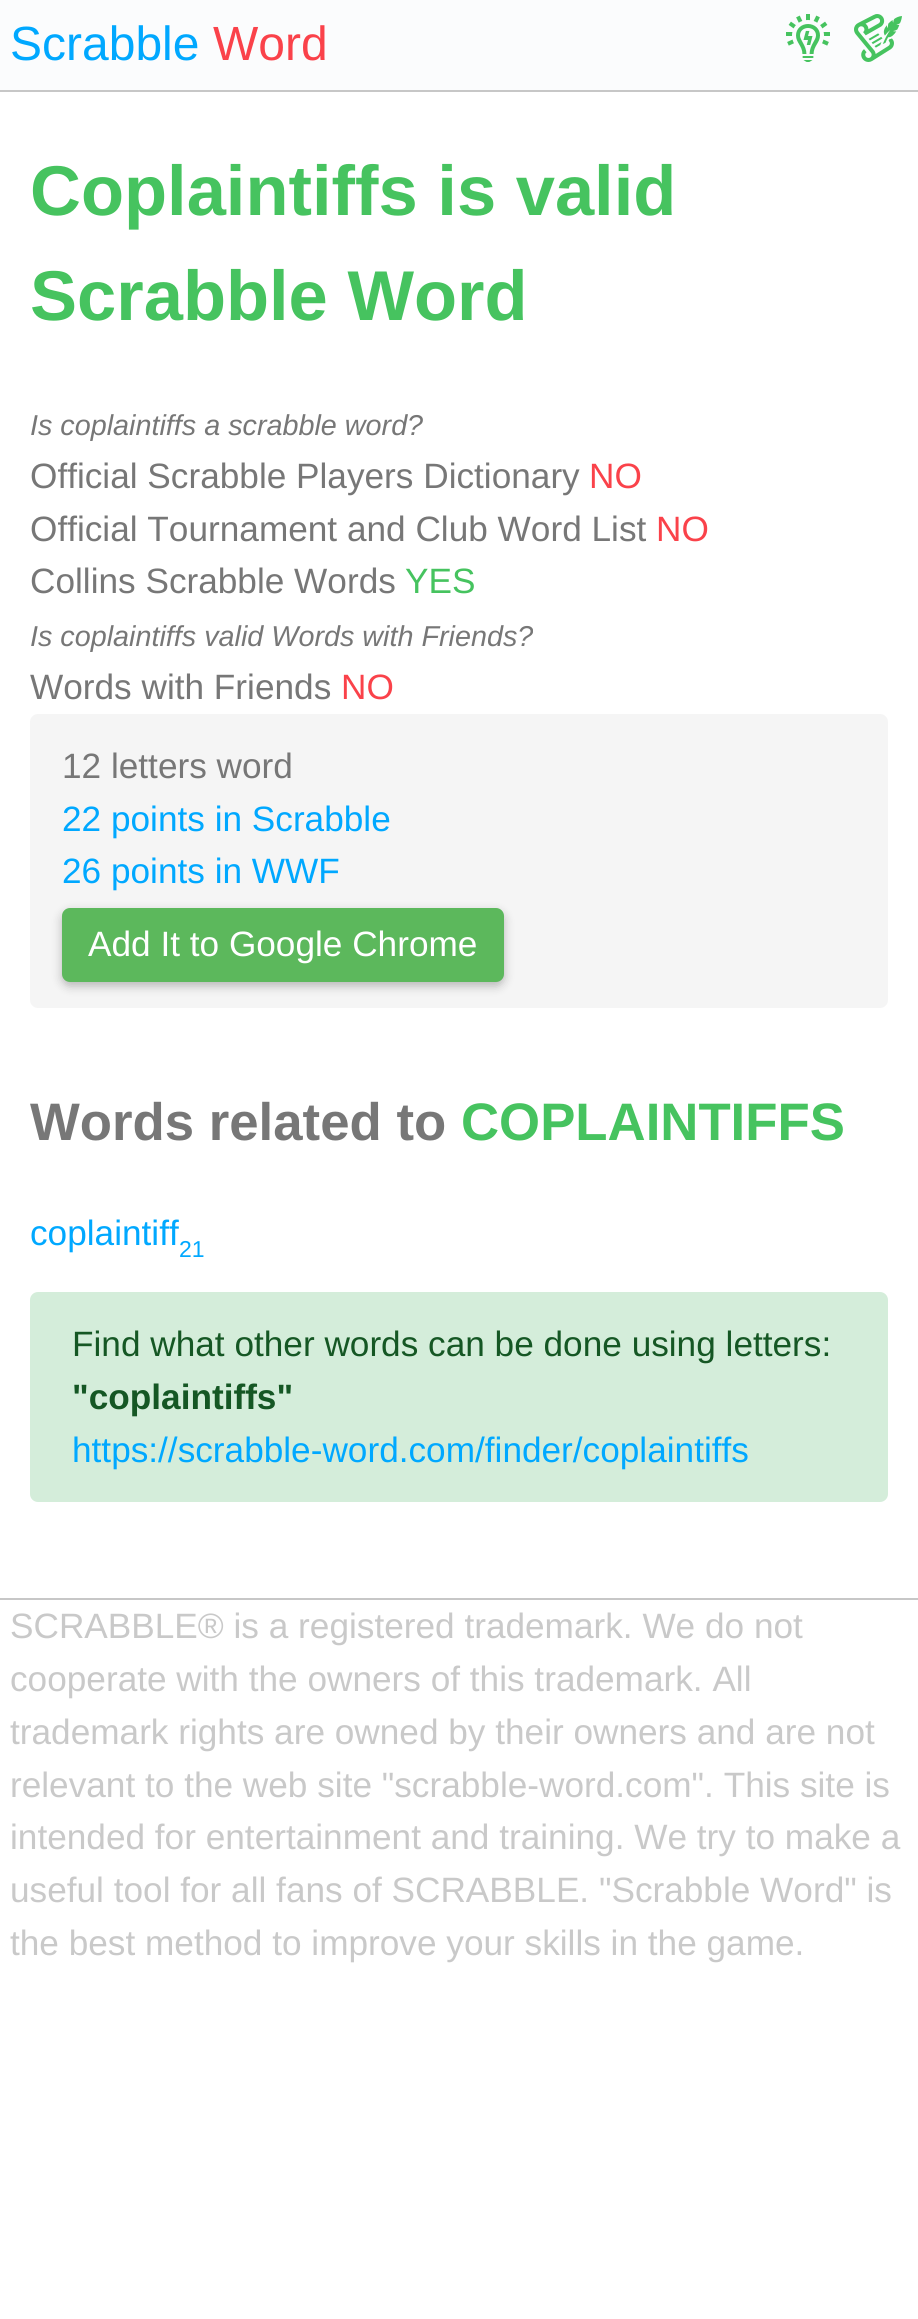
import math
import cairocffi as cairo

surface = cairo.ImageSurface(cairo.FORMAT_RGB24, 918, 2319)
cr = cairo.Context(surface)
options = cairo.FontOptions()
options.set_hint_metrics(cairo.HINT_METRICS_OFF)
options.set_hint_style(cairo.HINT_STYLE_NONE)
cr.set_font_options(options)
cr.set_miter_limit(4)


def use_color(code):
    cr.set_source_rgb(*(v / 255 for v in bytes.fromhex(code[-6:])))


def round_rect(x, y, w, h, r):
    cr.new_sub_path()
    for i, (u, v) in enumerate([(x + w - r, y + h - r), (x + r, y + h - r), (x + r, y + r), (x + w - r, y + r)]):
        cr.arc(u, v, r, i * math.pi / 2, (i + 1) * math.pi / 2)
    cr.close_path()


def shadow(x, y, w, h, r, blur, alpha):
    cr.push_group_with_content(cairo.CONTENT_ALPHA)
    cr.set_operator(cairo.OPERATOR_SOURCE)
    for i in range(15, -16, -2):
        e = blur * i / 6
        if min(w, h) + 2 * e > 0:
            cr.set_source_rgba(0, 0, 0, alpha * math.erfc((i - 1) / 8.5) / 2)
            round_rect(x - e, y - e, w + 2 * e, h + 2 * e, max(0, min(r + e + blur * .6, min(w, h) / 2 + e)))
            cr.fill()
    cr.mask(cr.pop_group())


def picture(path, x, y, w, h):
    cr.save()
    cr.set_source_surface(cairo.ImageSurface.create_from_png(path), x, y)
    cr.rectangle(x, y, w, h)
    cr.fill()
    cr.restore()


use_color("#ffffff")
cr.paint()
use_color("#fbfcfd")
cr.rectangle(0, 0, 918, 90)
cr.fill()
use_color("#c7c7c7")
cr.rectangle(0, 90, 918, 2)
cr.fill()
cr.select_font_face("Liberation Sans")
cr.set_font_size(48)
use_color("#00a8ff")
cr.move_to(10, 60)
cr.show_text("Scrabble")
use_color("#fa424a")
cr.move_to(213, 60)
cr.show_text("Word")
picture("img1.png", 786, 14, 44, 48)
picture("img2.png", 854, 14, 48, 48)
cr.select_font_face("Liberation Sans", cairo.FONT_SLANT_NORMAL, cairo.FONT_WEIGHT_BOLD)
cr.set_font_size(70.5)
use_color("#46c35f")
cr.move_to(30, 215)
cr.show_text("Coplaintiffs is valid")
cr.move_to(30, 320)
cr.show_text("Scrabble Word")
cr.select_font_face("Liberation Sans", cairo.FONT_SLANT_ITALIC)
cr.set_font_size(28.75)
use_color("#777777")
cr.move_to(30, 435)
cr.show_text("Is coplaintiffs a scrabble word?")
cr.select_font_face("Liberation Sans")
cr.set_font_size(35.2)
cr.move_to(30, 488)
cr.show_text("Official Scrabble Players Dictionary")
use_color("#fa424a")
cr.move_to(589, 488)
cr.show_text("NO")
use_color("#777777")
cr.move_to(30, 541)
cr.show_text("Official Tournament and Club Word List")
use_color("#fa424a")
cr.move_to(656, 541)
cr.show_text("NO")
use_color("#777777")
cr.move_to(30, 593)
cr.show_text("Collins Scrabble Words")
use_color("#46c35f")
cr.move_to(405, 593)
cr.show_text("YES")
cr.select_font_face("Liberation Sans", cairo.FONT_SLANT_ITALIC)
cr.set_font_size(28.75)
use_color("#777777")
cr.move_to(30, 646)
cr.show_text("Is coplaintiffs valid Words with Friends?")
cr.select_font_face("Liberation Sans")
cr.set_font_size(35.2)
cr.move_to(30, 699)
cr.show_text("Words with Friends")
use_color("#fa424a")
cr.move_to(341, 699)
cr.show_text("NO")
use_color("#f5f5f5")
round_rect(30, 714, 858, 294, 8)
cr.fill()
use_color("#777777")
cr.move_to(62, 778)
cr.show_text("12 letters word")
use_color("#00a8ff")
cr.move_to(62, 831)
cr.show_text("22 points in Scrabble")
cr.move_to(62, 883)
cr.show_text("26 points in WWF")
use_color("#000000")
shadow(62, 912, 442, 74, 8, 5, 0.26)
use_color("#5cb85c")
round_rect(63, 909, 440, 72, 7)
cr.fill_preserve()
cr.stroke()
use_color("#ffffff")
cr.move_to(88, 956)
cr.show_text("Add It to Google Chrome")
cr.select_font_face("Liberation Sans", cairo.FONT_SLANT_NORMAL, cairo.FONT_WEIGHT_BOLD)
cr.set_font_size(52.75)
use_color("#777777")
cr.move_to(30, 1140)
cr.show_text("Words related to")
use_color("#46c35f")
cr.move_to(461, 1140)
cr.show_text("COPLAINTIFFS")
cr.select_font_face("Liberation Sans")
cr.set_font_size(35.2)
use_color("#00a8ff")
cr.move_to(30, 1245)
cr.show_text("coplaintiff")
cr.set_font_size(23)
cr.move_to(179, 1257)
cr.show_text("21")
use_color("#d4edda")
round_rect(30, 1292, 858, 210, 8)
cr.fill()
cr.set_font_size(35.2)
use_color("#155724")
cr.move_to(72, 1356)
cr.show_text("Find what other words can be done using letters:")
cr.select_font_face("Liberation Sans", cairo.FONT_SLANT_NORMAL, cairo.FONT_WEIGHT_BOLD)
cr.move_to(72, 1409)
cr.show_text("\"coplaintiffs\"")
cr.select_font_face("Liberation Sans")
use_color("#00a8ff")
cr.move_to(72, 1462)
cr.show_text("https://scrabble-word.com/finder/coplaintiffs")
use_color("#c7c7c7")
cr.rectangle(0, 1598, 918, 2)
cr.fill()
use_color("#c9c9c9")
cr.move_to(10, 1638)
cr.show_text("SCRABBLE® is a registered trademark. We do not")
cr.move_to(10, 1691)
cr.show_text("cooperate with the owners of this trademark. All")
cr.move_to(10, 1744)
cr.show_text("trademark rights are owned by their owners and are not")
cr.move_to(10, 1797)
cr.show_text("relevant to the web site \"scrabble-word.com\". This site is")
cr.move_to(10, 1849)
cr.show_text("intended for entertainment and training. We try to make a")
cr.move_to(10, 1902)
cr.show_text("useful tool for all fans of SCRABBLE. \"Scrabble Word\" is")
cr.move_to(10, 1955)
cr.show_text("the best method to improve your skills in the game.")
surface.write_to_png("result.png")
